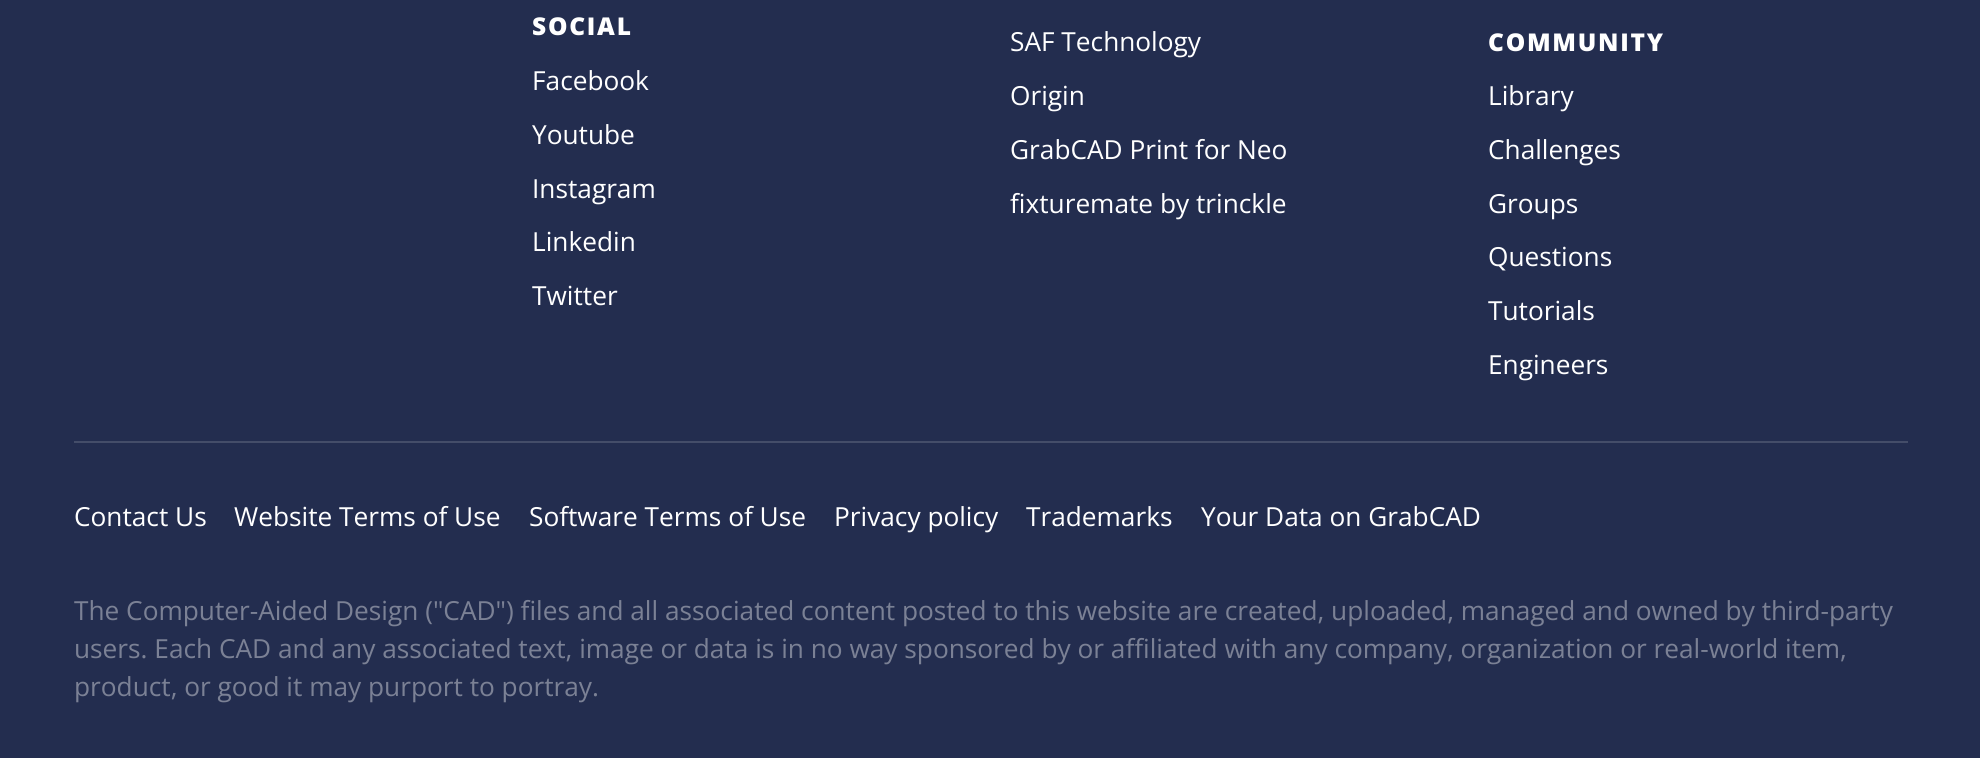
import math
import cairocffi as cairo

surface = cairo.ImageSurface(cairo.FORMAT_RGB24, 1980, 758)
cr = cairo.Context(surface)
options = cairo.FontOptions()
options.set_hint_metrics(cairo.HINT_METRICS_OFF)
options.set_hint_style(cairo.HINT_STYLE_NONE)
cr.set_font_options(options)
cr.set_miter_limit(4)


def use_color(code):
    cr.set_source_rgb(*(v / 255 for v in bytes.fromhex(code[-6:])))


def spaced_text(x, y, s, letter, word):
    cr.move_to(x, y)
    for ch in s:
        cr.show_text(ch)
        cr.rel_move_to(letter + word * (ch == ' '), 0)


use_color("#232d4f")
cr.paint()
use_color("#444d69")
cr.rectangle(74, 441, 1834, 2)
cr.fill()
cr.select_font_face("Open Sans ExtraBold")
cr.set_font_size(24.5)
use_color("#ffffff")
spaced_text(532, 35, "SOCIAL", 1.75, 0)
cr.select_font_face("Open Sans")
cr.set_font_size(26.25)
cr.move_to(532, 90)
cr.show_text("Facebook")
cr.move_to(532, 144)
cr.show_text("Youtube")
cr.move_to(532, 198)
cr.show_text("Instagram")
cr.move_to(532, 251)
cr.show_text("Linkedin")
cr.move_to(532, 305)
cr.show_text("Twitter")
cr.move_to(1010, 51)
cr.show_text("SAF Technology")
cr.move_to(1010, 105)
cr.show_text("Origin")
cr.move_to(1010, 159)
cr.show_text("GrabCAD Print for Neo")
cr.move_to(1010, 213)
cr.show_text("fixturemate by trinckle")
cr.select_font_face("Open Sans ExtraBold")
cr.set_font_size(24.5)
spaced_text(1488, 51, "COMMUNITY", 1.75, 0)
cr.select_font_face("Open Sans")
cr.set_font_size(26.25)
cr.move_to(1488, 105)
cr.show_text("Library")
cr.move_to(1488, 159)
cr.show_text("Challenges")
cr.move_to(1488, 213)
cr.show_text("Groups")
cr.move_to(1488, 266)
cr.show_text("Questions")
cr.move_to(1488, 320)
cr.show_text("Tutorials")
cr.move_to(1488, 374)
cr.show_text("Engineers")
cr.move_to(74, 526)
cr.show_text("Contact Us")
cr.move_to(234, 526)
cr.show_text("Website Terms of Use")
cr.move_to(529, 526)
cr.show_text("Software Terms of Use")
cr.move_to(834, 526)
cr.show_text("Privacy policy")
cr.move_to(1026, 526)
cr.show_text("Trademarks")
cr.move_to(1201, 526)
cr.show_text("Your Data on GrabCAD")
use_color("#7b8195")
cr.move_to(74, 620)
cr.show_text("The Computer-Aided Design (\"CAD\") files and all associated content posted to this website are created, uploaded, managed and owned by third-party")
cr.move_to(74, 658)
cr.show_text("users. Each CAD and any associated text, image or data is in no way sponsored by or affiliated with any company, organization or real-world item,")
cr.move_to(74, 696)
cr.show_text("product, or good it may purport to portray.")
surface.write_to_png("result.png")
